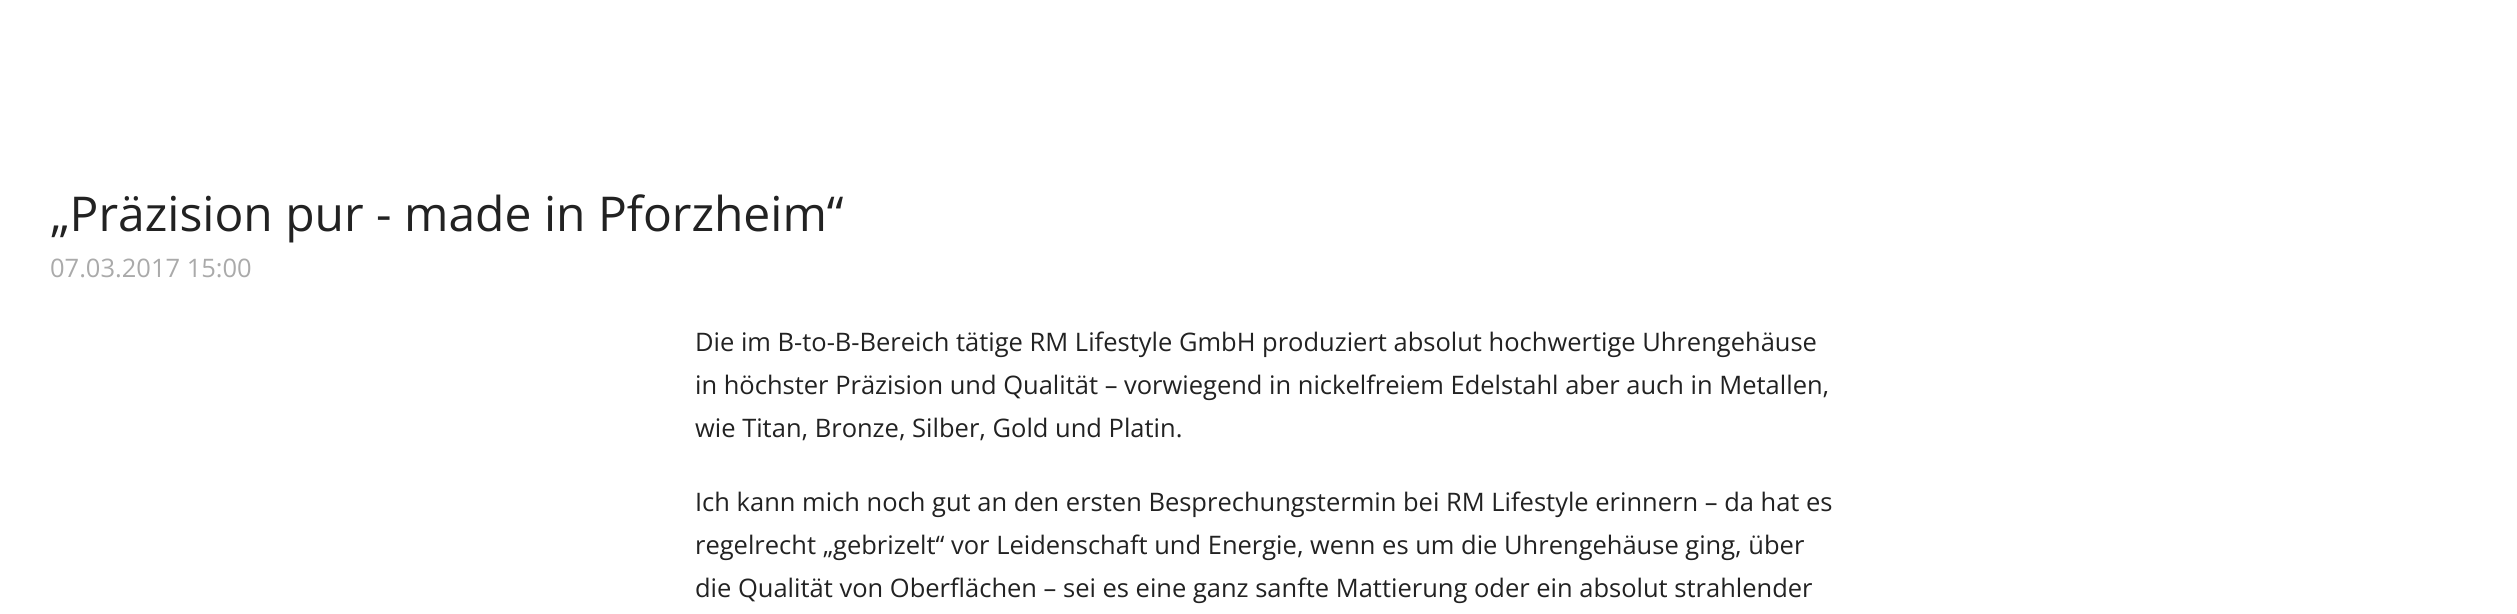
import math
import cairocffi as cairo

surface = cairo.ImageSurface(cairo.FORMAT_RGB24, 2517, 614)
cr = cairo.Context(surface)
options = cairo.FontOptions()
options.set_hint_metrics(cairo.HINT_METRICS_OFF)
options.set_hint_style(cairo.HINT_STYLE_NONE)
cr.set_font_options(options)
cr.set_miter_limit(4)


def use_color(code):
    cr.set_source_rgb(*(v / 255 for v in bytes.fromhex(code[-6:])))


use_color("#ffffff")
cr.paint()
cr.select_font_face("Open Sans")
cr.set_font_size(48)
use_color("#222222")
cr.move_to(50, 231)
cr.show_text("„Präzision pur - made in Pforzheim“")
cr.set_font_size(25.5)
use_color("#aaaaaa")
cr.move_to(50, 277)
cr.show_text("07.03.2017 15:00")
use_color("#222222")
cr.move_to(695, 351)
cr.show_text("Die im B-to-B-Bereich tätige RM Lifestyle GmbH produziert absolut hochwertige Uhrengehäuse")
cr.move_to(695, 394)
cr.show_text("in höchster Präzision und Qualität – vorwiegend in nickelfreiem Edelstahl aber auch in Metallen,")
cr.move_to(695, 437)
cr.show_text("wie Titan, Bronze, Silber, Gold und Platin.")
cr.move_to(695, 511)
cr.show_text("Ich kann mich noch gut an den ersten Besprechungstermin bei RM Lifestyle erinnern – da hat es")
cr.move_to(695, 554)
cr.show_text("regelrecht „gebrizelt“ vor Leidenschaft und Energie, wenn es um die Uhrengehäuse ging, über")
cr.move_to(695, 597)
cr.show_text("die Qualität von Oberflächen – sei es eine ganz sanfte Mattierung oder ein absolut strahlender")
surface.write_to_png("result.png")
